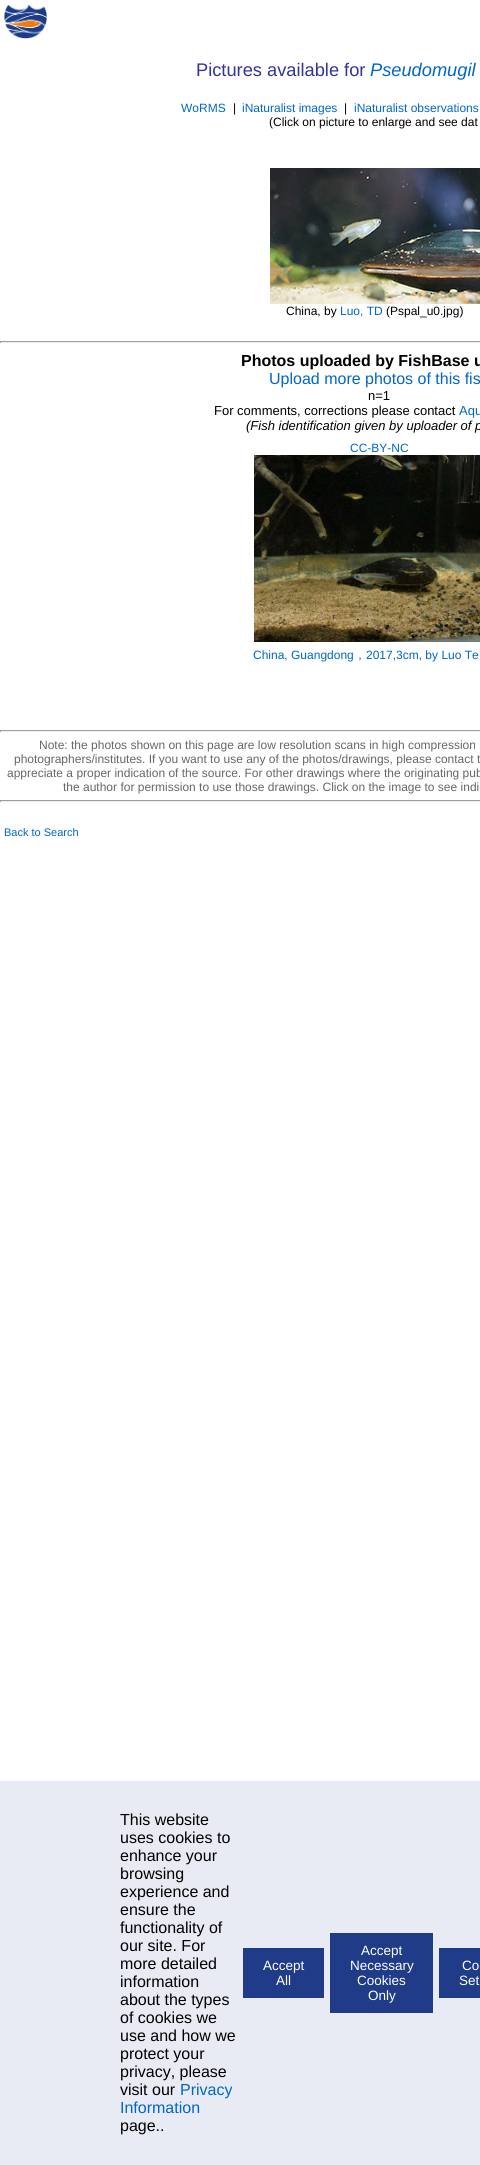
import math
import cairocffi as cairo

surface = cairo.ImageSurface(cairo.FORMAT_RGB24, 480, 2165)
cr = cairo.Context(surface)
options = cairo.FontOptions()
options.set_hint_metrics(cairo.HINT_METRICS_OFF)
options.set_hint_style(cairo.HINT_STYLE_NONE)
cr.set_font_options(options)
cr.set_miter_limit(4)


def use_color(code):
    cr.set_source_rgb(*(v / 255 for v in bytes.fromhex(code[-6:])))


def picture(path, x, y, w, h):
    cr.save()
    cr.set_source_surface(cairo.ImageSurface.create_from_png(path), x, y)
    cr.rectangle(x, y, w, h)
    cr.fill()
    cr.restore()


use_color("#ffffff")
cr.paint()
picture("img1.png", 4, 4, 43, 35)
cr.select_font_face("Liberation Sans")
cr.set_font_size(18.25)
use_color("#333399")
cr.move_to(196, 76)
cr.show_text("Pictures available for")
cr.select_font_face("Liberation Sans", cairo.FONT_SLANT_ITALIC)
use_color("#0066cc")
cr.move_to(370, 76)
cr.show_text("Pseudomugil")
cr.select_font_face("Liberation Sans")
cr.set_font_size(12)
cr.move_to(181, 112)
cr.show_text("WoRMS")
use_color("#000000")
cr.move_to(233, 112)
cr.show_text("|")
use_color("#0066cc")
cr.move_to(242, 112)
cr.show_text("iNaturalist images")
use_color("#000000")
cr.move_to(344, 112)
cr.show_text("|")
use_color("#0066cc")
cr.move_to(354, 112)
cr.show_text("iNaturalist observations")
use_color("#000000")
cr.move_to(269, 126)
cr.show_text("(Click on picture to enlarge and see dat")
picture("img2.png", 270, 168, 210, 136)
cr.move_to(286, 315)
cr.show_text("China, by")
use_color("#0066cc")
cr.move_to(340, 315)
cr.show_text("Luo, TD")
use_color("#000000")
cr.move_to(386, 315)
cr.show_text("(Pspal_u0.jpg)")
use_color("#9f9f9f")
cr.rectangle(0, 341, 480, 1)
cr.fill()
use_color("#eeeeee")
cr.rectangle(0, 342, 480, 1)
cr.fill()
use_color("#9f9f9f")
cr.rectangle(0, 341, 1, 2)
cr.fill()
cr.select_font_face("Liberation Sans", cairo.FONT_SLANT_NORMAL, cairo.FONT_WEIGHT_BOLD)
cr.set_font_size(16)
use_color("#000000")
cr.move_to(241, 366)
cr.show_text("Photos uploaded by FishBase u")
cr.select_font_face("Liberation Sans")
use_color("#0066cc")
cr.move_to(269, 384)
cr.show_text("Upload more photos of this fis")
cr.set_font_size(13)
use_color("#000000")
cr.move_to(368, 400)
cr.show_text("n=1")
cr.move_to(214, 415)
cr.show_text("For comments, corrections please contact")
use_color("#0066cc")
cr.move_to(459, 415)
cr.show_text("Aqu")
cr.select_font_face("Liberation Sans", cairo.FONT_SLANT_ITALIC)
use_color("#000000")
cr.move_to(246, 430)
cr.show_text("(Fish identification given by uploader of p")
cr.select_font_face("Liberation Sans")
cr.set_font_size(12)
use_color("#0066cc")
cr.move_to(350, 452)
cr.show_text("CC-BY-NC")
picture("img3.png", 254, 455, 226, 187)
cr.move_to(253, 659)
cr.show_text("China, Guangdong")
cr.select_font_face("WenQuanYi Zen Hei Medium")
cr.move_to(354, 659)
cr.show_text("，")
cr.select_font_face("Liberation Sans")
cr.move_to(366, 659)
cr.show_text("2017,3cm, by Luo Te")
use_color("#9f9f9f")
cr.rectangle(0, 730, 480, 1)
cr.fill()
use_color("#eeeeee")
cr.rectangle(0, 731, 480, 1)
cr.fill()
use_color("#9f9f9f")
cr.rectangle(0, 730, 1, 2)
cr.fill()
use_color("#666666")
cr.move_to(39, 749)
cr.show_text("Note: the photos shown on this page are low resolution scans in high compression")
cr.move_to(14, 763)
cr.show_text("photographers/institutes. If you want to use any of the photos/drawings, please contact t")
cr.move_to(7, 777)
cr.show_text("appreciate a proper indication of the source. For other drawings where the originating pub")
cr.move_to(63, 791)
cr.show_text("the author for permission to use those drawings. Click on the image to see indi")
use_color("#9f9f9f")
cr.rectangle(0, 800, 480, 1)
cr.fill()
use_color("#eeeeee")
cr.rectangle(0, 801, 480, 1)
cr.fill()
use_color("#9f9f9f")
cr.rectangle(0, 800, 1, 2)
cr.fill()
cr.set_font_size(11)
use_color("#0066cc")
cr.move_to(4, 836)
cr.show_text("Back to Search")
use_color("#e8ebf3")
cr.rectangle(0, 1781, 480, 384)
cr.fill()
cr.set_font_size(16)
use_color("#000000")
cr.move_to(120, 1825)
cr.show_text("This website")
cr.move_to(120, 1843)
cr.show_text("uses cookies to")
cr.move_to(120, 1861)
cr.show_text("enhance your")
cr.move_to(120, 1879)
cr.show_text("browsing")
cr.move_to(120, 1897)
cr.show_text("experience and")
cr.move_to(120, 1915)
cr.show_text("ensure the")
cr.move_to(120, 1933)
cr.show_text("functionality of")
cr.move_to(120, 1951)
cr.show_text("our site. For")
cr.move_to(120, 1969)
cr.show_text("more detailed")
cr.move_to(120, 1987)
cr.show_text("information")
cr.move_to(120, 2005)
cr.show_text("about the types")
cr.move_to(120, 2023)
cr.show_text("of cookies we")
cr.move_to(120, 2041)
cr.show_text("use and how we")
cr.move_to(120, 2059)
cr.show_text("protect your")
cr.move_to(120, 2077)
cr.show_text("privacy, please")
cr.move_to(120, 2095)
cr.show_text("visit our")
use_color("#0066cc")
cr.move_to(180, 2095)
cr.show_text("Privacy")
cr.move_to(120, 2113)
cr.show_text("Information")
use_color("#000000")
cr.move_to(120, 2131)
cr.show_text("page..")
use_color("#203c88")
cr.rectangle(243, 1948, 81, 50)
cr.fill()
cr.set_font_size(13.5)
use_color("#ffffff")
cr.move_to(263, 1970)
cr.show_text("Accept")
cr.move_to(276, 1985)
cr.show_text("All")
use_color("#203c88")
cr.rectangle(330, 1933, 103, 80)
cr.fill()
use_color("#ffffff")
cr.move_to(361, 1955)
cr.show_text("Accept")
cr.move_to(350, 1970)
cr.show_text("Necessary")
cr.move_to(357, 1985)
cr.show_text("Cookies")
cr.move_to(368, 2000)
cr.show_text("Only")
use_color("#203c88")
cr.rectangle(439, 1948, 41, 50)
cr.fill()
use_color("#ffffff")
cr.move_to(462, 1970)
cr.show_text("Co")
cr.move_to(459, 1985)
cr.show_text("Set")
surface.write_to_png("result.png")
